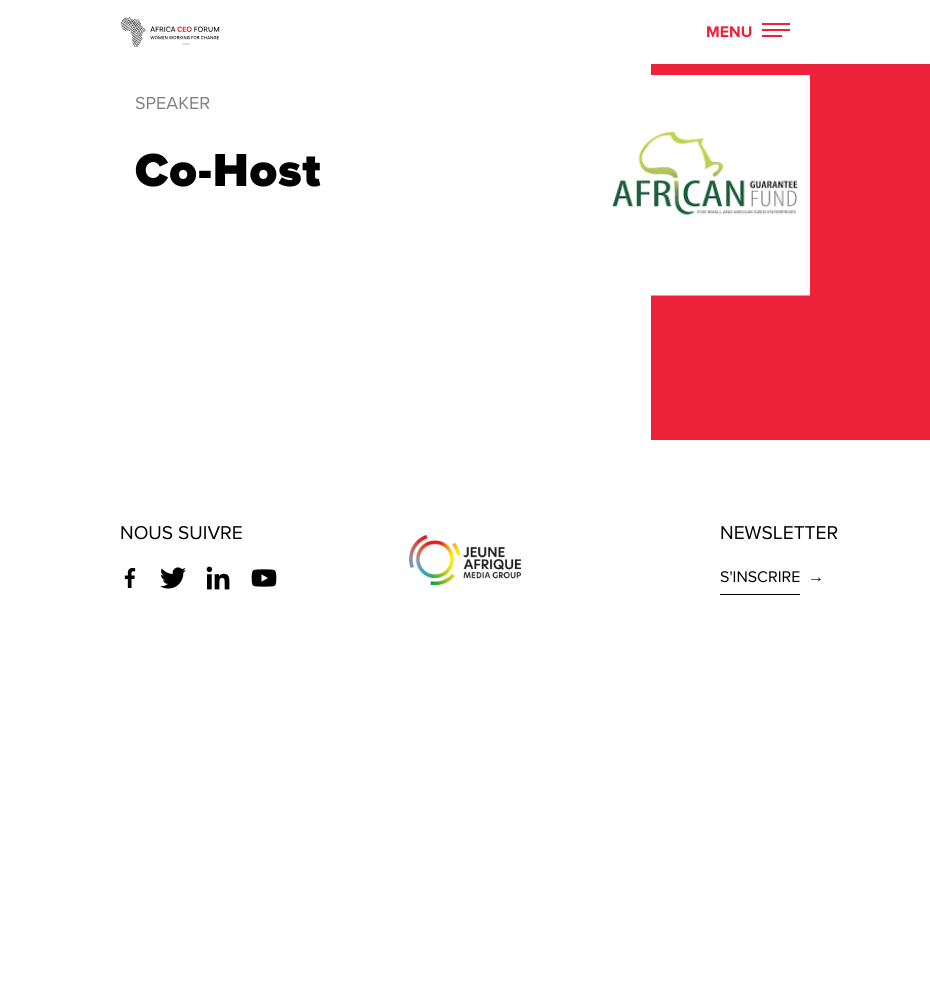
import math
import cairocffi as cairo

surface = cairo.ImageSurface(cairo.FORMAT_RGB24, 930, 1008)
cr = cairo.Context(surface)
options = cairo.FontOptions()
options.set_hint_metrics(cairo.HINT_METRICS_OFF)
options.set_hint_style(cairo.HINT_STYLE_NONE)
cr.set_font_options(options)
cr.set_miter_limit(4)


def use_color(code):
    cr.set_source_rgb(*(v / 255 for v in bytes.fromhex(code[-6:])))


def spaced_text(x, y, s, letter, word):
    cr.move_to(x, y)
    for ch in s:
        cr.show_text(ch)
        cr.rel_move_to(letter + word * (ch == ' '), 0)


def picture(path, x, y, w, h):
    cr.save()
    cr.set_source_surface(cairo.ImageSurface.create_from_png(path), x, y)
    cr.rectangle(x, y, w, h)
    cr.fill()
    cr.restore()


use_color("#ffffff")
cr.paint()
picture("img1.png", 120, 17, 100, 31)
cr.select_font_face("Proxima Nova", cairo.FONT_SLANT_NORMAL, cairo.FONT_WEIGHT_BOLD)
cr.set_font_size(16)
use_color("#ed2139")
cr.move_to(706, 37)
cr.show_text("MENU")
cr.rectangle(762, 23, 28, 2)
cr.fill()
cr.rectangle(762, 29, 28, 2)
cr.fill()
cr.rectangle(762, 35, 20, 2)
cr.fill()
cr.select_font_face("Proxima Nova")
cr.set_font_size(18)
use_color("#808080")
cr.move_to(135, 109)
cr.show_text("SPEAKER")
cr.select_font_face("Proxima Nova Black")
cr.set_font_size(48)
use_color("#000000")
spaced_text(135, 186, "Co-Host", 0.75, 0)
use_color("#ed2139")
cr.rectangle(651, 64, 279, 376)
cr.fill()
picture("img2.png", 610, 75, 200, 221)
cr.select_font_face("Proxima Nova")
cr.set_font_size(19.25)
use_color("#000000")
cr.move_to(120, 539)
cr.show_text("NOUS SUIVRE")
picture("img3.png", 124, 568, 12, 20)
picture("img4.png", 160, 567, 26, 22)
picture("img5.png", 206, 566, 24, 24)
picture("img6.png", 251, 569, 26, 18)
picture("img7.png", 409, 535, 112, 50)
cr.move_to(720, 539)
cr.show_text("NEWSLETTER")
cr.set_font_size(16)
cr.move_to(720, 582)
cr.show_text("S'INSCRIRE")
cr.select_font_face("Liberation Sans")
cr.move_to(808, 582)
cr.show_text("→")
cr.rectangle(720, 594, 80, 1)
cr.fill()
surface.write_to_png("result.png")
